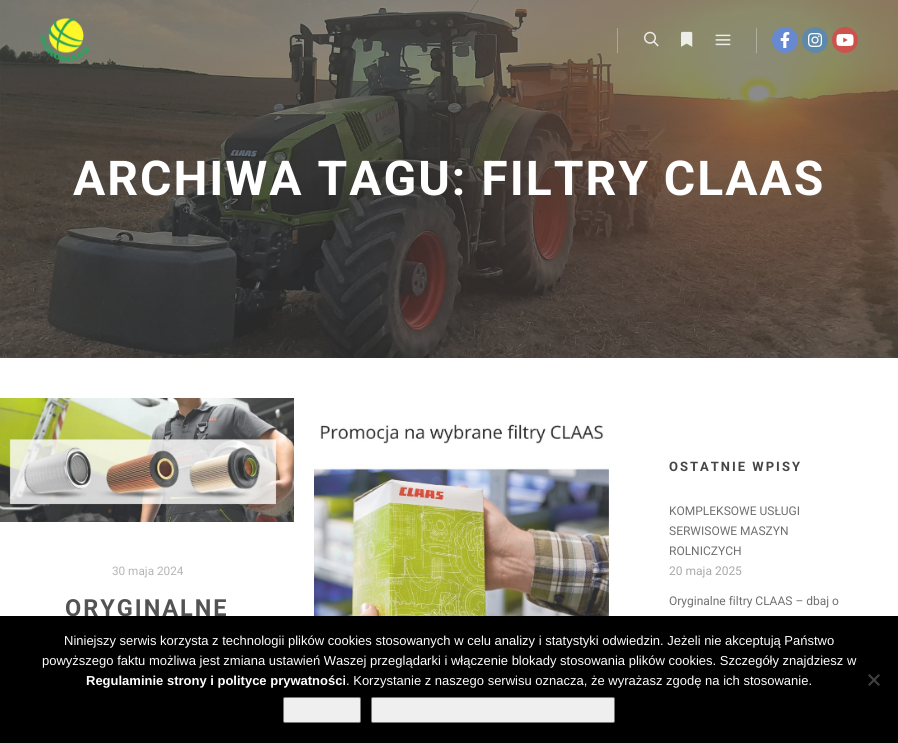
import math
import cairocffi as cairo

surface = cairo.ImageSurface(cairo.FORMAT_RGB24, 898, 743)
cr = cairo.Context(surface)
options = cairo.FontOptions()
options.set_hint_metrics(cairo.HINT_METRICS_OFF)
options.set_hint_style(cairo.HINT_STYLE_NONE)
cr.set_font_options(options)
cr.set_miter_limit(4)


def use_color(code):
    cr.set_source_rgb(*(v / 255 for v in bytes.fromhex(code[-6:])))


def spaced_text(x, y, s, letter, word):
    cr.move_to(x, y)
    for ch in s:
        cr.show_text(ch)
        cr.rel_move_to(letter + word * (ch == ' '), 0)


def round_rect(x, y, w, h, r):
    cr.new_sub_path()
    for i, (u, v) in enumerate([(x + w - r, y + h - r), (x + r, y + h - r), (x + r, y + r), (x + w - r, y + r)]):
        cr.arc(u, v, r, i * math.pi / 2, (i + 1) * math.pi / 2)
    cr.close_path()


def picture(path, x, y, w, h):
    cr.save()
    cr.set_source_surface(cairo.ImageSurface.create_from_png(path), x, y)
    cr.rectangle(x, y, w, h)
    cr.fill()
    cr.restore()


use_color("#ffffff")
cr.paint()
picture("img8.png", 0, 0, 898, 358)
picture("img1.png", 40, 18, 50, 45)
cr.set_source_rgba(1, 1, 1, 0.3)
cr.rectangle(617, 28, 1, 25)
cr.fill()
picture("img2.png", 644, 31, 15, 16)
picture("img3.png", 681, 31, 12, 16)
picture("img4.png", 715, 34, 16, 12)
cr.rectangle(756, 28, 1, 25)
cr.fill()
use_color("#6789d2")
cr.arc(785, 40, 13, 0, 2 * math.pi)
cr.fill()
picture("img5.png", 780, 32, 10, 16)
use_color("#5e89ab")
cr.arc(815, 40, 13, 0, 2 * math.pi)
cr.fill()
picture("img6.png", 808, 33, 14, 14)
use_color("#cd514d")
cr.arc(845, 40, 13, 0, 2 * math.pi)
cr.fill()
picture("img7.png", 836, 34, 18, 12)
cr.select_font_face("Roboto", cairo.FONT_SLANT_NORMAL, cairo.FONT_WEIGHT_BOLD)
cr.set_font_size(48)
use_color("#ffffff")
spaced_text(73, 195, "ARCHIWA TAGU: FILTRY CLAAS", 2, 0)
picture("img9.png", 0, 398, 294, 124)
cr.select_font_face("Roboto")
cr.set_font_size(11.75)
use_color("#b5b5b5")
cr.move_to(112, 575)
cr.show_text("30 maja 2024")
cr.select_font_face("Roboto", cairo.FONT_SLANT_NORMAL, cairo.FONT_WEIGHT_BOLD)
cr.set_font_size(23.5)
use_color("#535353")
spaced_text(65, 616, "ORYGINALNE", 2, 0)
picture("img10.png", 314, 424, 295, 192)
cr.set_font_size(13)
use_color("#454545")
spaced_text(669, 471, "OSTATNIE WPISY", 2, 0)
cr.select_font_face("Roboto")
cr.set_font_size(12)
use_color("#6f6f6f")
cr.move_to(669, 515)
cr.show_text("KOMPLEKSOWE USŁUGI")
cr.move_to(669, 535)
cr.show_text("SERWISOWE MASZYN")
cr.move_to(669, 555)
cr.show_text("ROLNICZYCH")
use_color("#a9a9a9")
cr.move_to(669, 575)
cr.show_text("20 maja 2025")
use_color("#6f6f6f")
cr.move_to(669, 605)
cr.show_text("Oryginalne filtry CLAAS – dbaj o")
use_color("#000000")
cr.rectangle(0, 616, 898, 127)
cr.fill()
cr.select_font_face("Liberation Sans")
cr.set_font_size(13)
use_color("#ffffff")
cr.move_to(64, 645)
cr.show_text("Niniejszy serwis korzysta z technologii plików cookies stosowanych w celu analizy i statystyki odwiedzin. Jeżeli nie akceptują Państwo")
cr.move_to(42, 665)
cr.show_text("powyższego faktu możliwa jest zmiana ustawień Waszej przeglądarki i włączenie blokady stosowania plików cookies. Szczegóły znajdziesz w")
cr.select_font_face("Liberation Sans", cairo.FONT_SLANT_NORMAL, cairo.FONT_WEIGHT_BOLD)
cr.move_to(86, 685)
cr.show_text("Regulaminie strony i polityce prywatności")
cr.select_font_face("Liberation Sans")
cr.move_to(346, 685)
cr.show_text(". Korzystanie z naszego serwisu oznacza, że wyrażasz zgodę na ich stosowanie.")
use_color("#404040")
cr.new_path()
cr.move_to(878.5, 674)
cr.line_to(880, 675.5)
cr.line_to(869.5, 686)
cr.line_to(868, 684.5)
cr.close_path()
cr.fill()
cr.new_path()
cr.move_to(868, 675.5)
cr.line_to(869.5, 674)
cr.line_to(880, 684.5)
cr.line_to(878.5, 686)
cr.close_path()
cr.fill()
use_color("#efefef")
round_rect(283.5, 697.5, 77, 25, 1.5)
cr.fill_preserve()
use_color("#767676")
cr.set_line_width(1)
cr.stroke()
use_color("#efefef")
round_rect(371.5, 697.5, 243, 25, 1.5)
cr.fill_preserve()
use_color("#767676")
cr.stroke()
surface.write_to_png("result.png")
